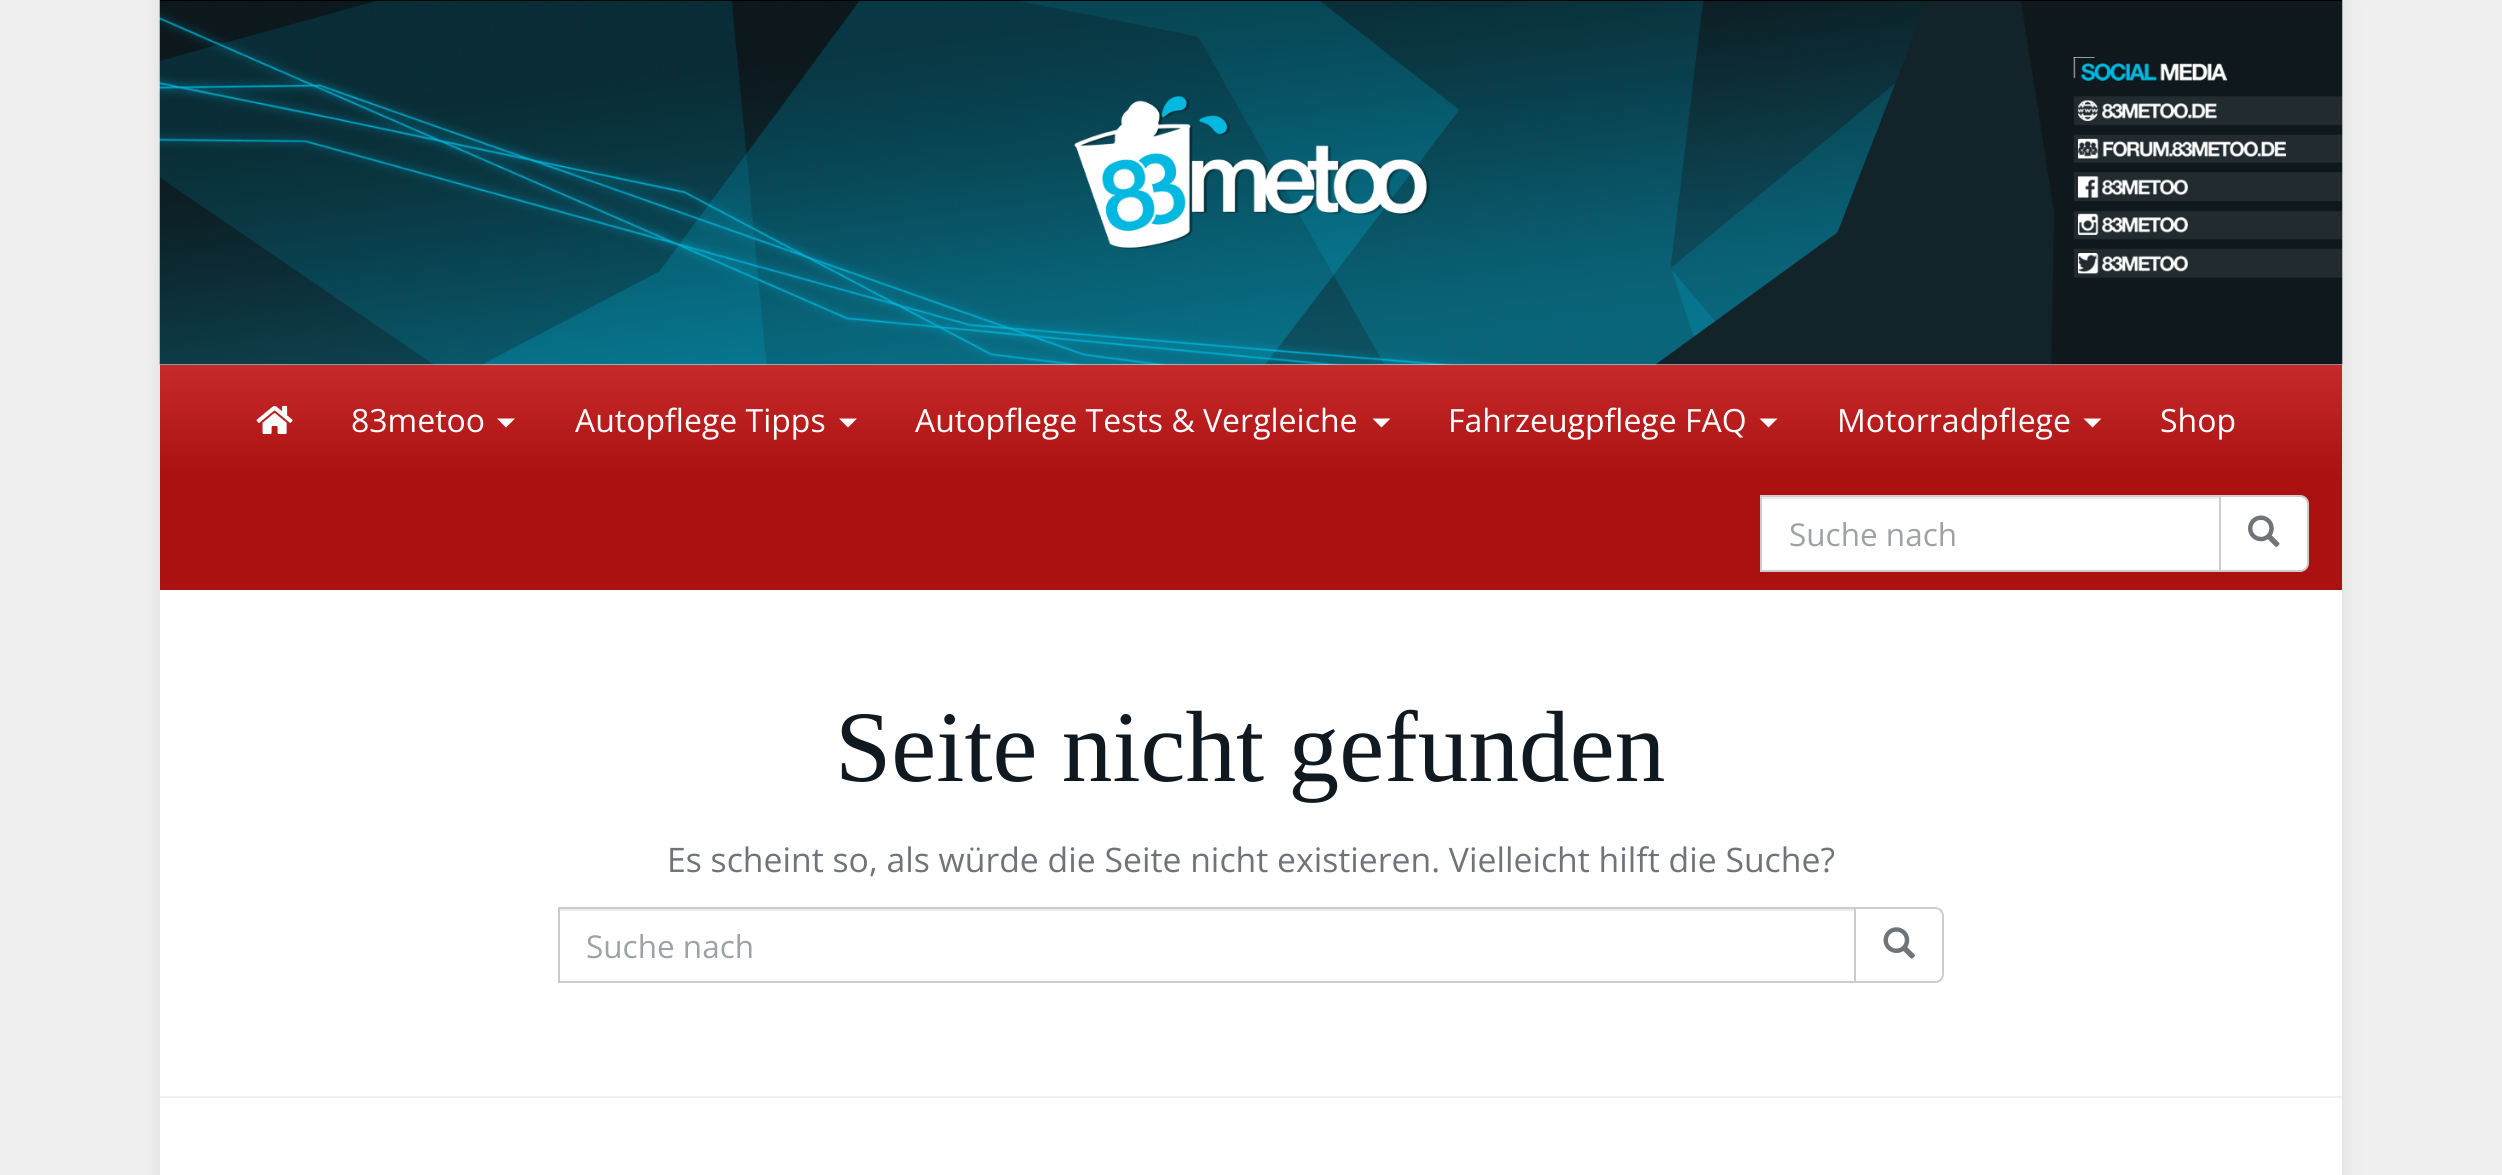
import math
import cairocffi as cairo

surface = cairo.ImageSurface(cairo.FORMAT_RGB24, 2502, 1175)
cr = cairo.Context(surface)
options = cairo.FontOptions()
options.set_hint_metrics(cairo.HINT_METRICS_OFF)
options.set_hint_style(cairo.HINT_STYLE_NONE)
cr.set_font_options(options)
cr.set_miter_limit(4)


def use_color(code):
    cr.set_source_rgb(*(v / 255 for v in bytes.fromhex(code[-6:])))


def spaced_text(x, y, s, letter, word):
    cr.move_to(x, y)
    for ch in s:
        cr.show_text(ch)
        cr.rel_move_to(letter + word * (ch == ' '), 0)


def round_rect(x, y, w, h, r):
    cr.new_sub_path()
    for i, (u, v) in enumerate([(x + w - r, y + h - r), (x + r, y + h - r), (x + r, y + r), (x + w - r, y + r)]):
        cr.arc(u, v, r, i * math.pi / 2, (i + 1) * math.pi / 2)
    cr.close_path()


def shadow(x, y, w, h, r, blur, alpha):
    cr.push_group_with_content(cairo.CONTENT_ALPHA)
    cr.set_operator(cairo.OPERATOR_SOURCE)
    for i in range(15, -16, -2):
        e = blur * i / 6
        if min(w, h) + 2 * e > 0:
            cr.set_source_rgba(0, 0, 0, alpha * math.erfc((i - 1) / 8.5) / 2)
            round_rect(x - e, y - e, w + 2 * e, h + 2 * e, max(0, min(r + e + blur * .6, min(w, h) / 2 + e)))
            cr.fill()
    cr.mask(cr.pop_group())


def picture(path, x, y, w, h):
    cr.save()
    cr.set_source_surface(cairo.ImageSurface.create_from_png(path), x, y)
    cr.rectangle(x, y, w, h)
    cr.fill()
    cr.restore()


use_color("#f0f0f0")
cr.paint()
use_color("#dddddd")
shadow(160, 0, 2182, 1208, 0, 11, 1)
use_color("#ffffff")
cr.rectangle(160, 364, 2182, 811)
cr.fill()
picture("img1.png", 159, 0, 2184, 365)
gradient = cairo.LinearGradient(1251, 364, 1251, 590)
gradient.add_color_stop_rgba(0, 0.776, 0.165, 0.165, 1)
gradient.add_color_stop_rgba(0.5, 0.675, 0.067, 0.067, 1)
cr.set_source(gradient)
cr.rectangle(160, 365, 2182, 225)
cr.fill()
picture("img2.png", 256, 405, 37, 29)
cr.select_font_face("Open Sans")
cr.set_font_size(32)
use_color("#ffffff")
cr.move_to(351, 432)
cr.show_text("83metoo")
cr.new_path()
cr.move_to(497, 418.5)
cr.line_to(515, 418.5)
cr.line_to(506, 427.5)
cr.close_path()
cr.fill()
cr.move_to(575, 432)
cr.show_text("Autopflege Tipps")
cr.new_path()
cr.move_to(839, 418.5)
cr.line_to(857, 418.5)
cr.line_to(848, 427.5)
cr.close_path()
cr.fill()
cr.move_to(915, 432)
cr.show_text("Autopflege Tests & Vergleiche")
cr.new_path()
cr.move_to(1372.5, 418.5)
cr.line_to(1390.5, 418.5)
cr.line_to(1381.5, 427.5)
cr.close_path()
cr.fill()
cr.move_to(1448, 432)
cr.show_text("Fahrzeugpflege FAQ")
cr.new_path()
cr.move_to(1759.5, 418.5)
cr.line_to(1777.5, 418.5)
cr.line_to(1768.5, 427.5)
cr.close_path()
cr.fill()
cr.move_to(1837, 432)
cr.show_text("Motorradpflege")
cr.new_path()
cr.move_to(2083.5, 418.5)
cr.line_to(2101.5, 418.5)
cr.line_to(2092.5, 427.5)
cr.close_path()
cr.fill()
cr.move_to(2160, 432)
cr.show_text("Shop")
cr.rectangle(1762, 499, 457, 71)
cr.fill()
use_color("#ececec")
cr.rectangle(1762, 497, 457, 2)
cr.fill()
cr.rectangle(1761, 496, 459, 75)
use_color("#cccccc")
cr.stroke()
cr.set_font_size(31.5)
use_color("#9fa2a5")
cr.move_to(1789, 546)
cr.show_text("Suche nach")
use_color("#ffffff")
cr.new_path()
cr.move_to(2220, 496)
cr.line_to(2300, 496)
cr.curve_to(2304.5, 496, 2308, 499.5, 2308, 504)
cr.line_to(2308, 563)
cr.curve_to(2308, 567.5, 2304.5, 571, 2300, 571)
cr.line_to(2220, 571)
cr.close_path()
cr.fill_preserve()
use_color("#cccccc")
cr.stroke()
picture("img3.png", 2248, 515, 32, 32)
cr.select_font_face("Liberation Serif")
cr.set_font_size(101.25)
use_color("#101820")
spaced_text(835, 781, "Seite nicht gefunden", 0, -1)
cr.select_font_face("Open Sans")
cr.set_font_size(33.75)
use_color("#6f7479")
cr.move_to(667, 872)
cr.show_text("Es scheint so, als würde die Seite nicht existieren. Vielleicht hilft die Suche?")
use_color("#ececec")
cr.rectangle(560, 909, 1294, 2)
cr.fill()
cr.rectangle(559, 908, 1296, 74)
use_color("#cccccc")
cr.stroke()
cr.set_font_size(31.5)
use_color("#9fa2a5")
cr.move_to(586, 958)
cr.show_text("Suche nach")
use_color("#ffffff")
cr.new_path()
cr.move_to(1855, 908)
cr.line_to(1935, 908)
cr.curve_to(1939.5, 908, 1943, 911.5, 1943, 916)
cr.line_to(1943, 974)
cr.curve_to(1943, 978.5, 1939.5, 982, 1935, 982)
cr.line_to(1855, 982)
cr.close_path()
cr.fill_preserve()
use_color("#cccccc")
cr.stroke()
picture("img4.png", 1883, 927, 32, 32)
use_color("#f0f0f0")
cr.rectangle(160, 1096, 2182, 2)
cr.fill()
surface.write_to_png("result.png")
